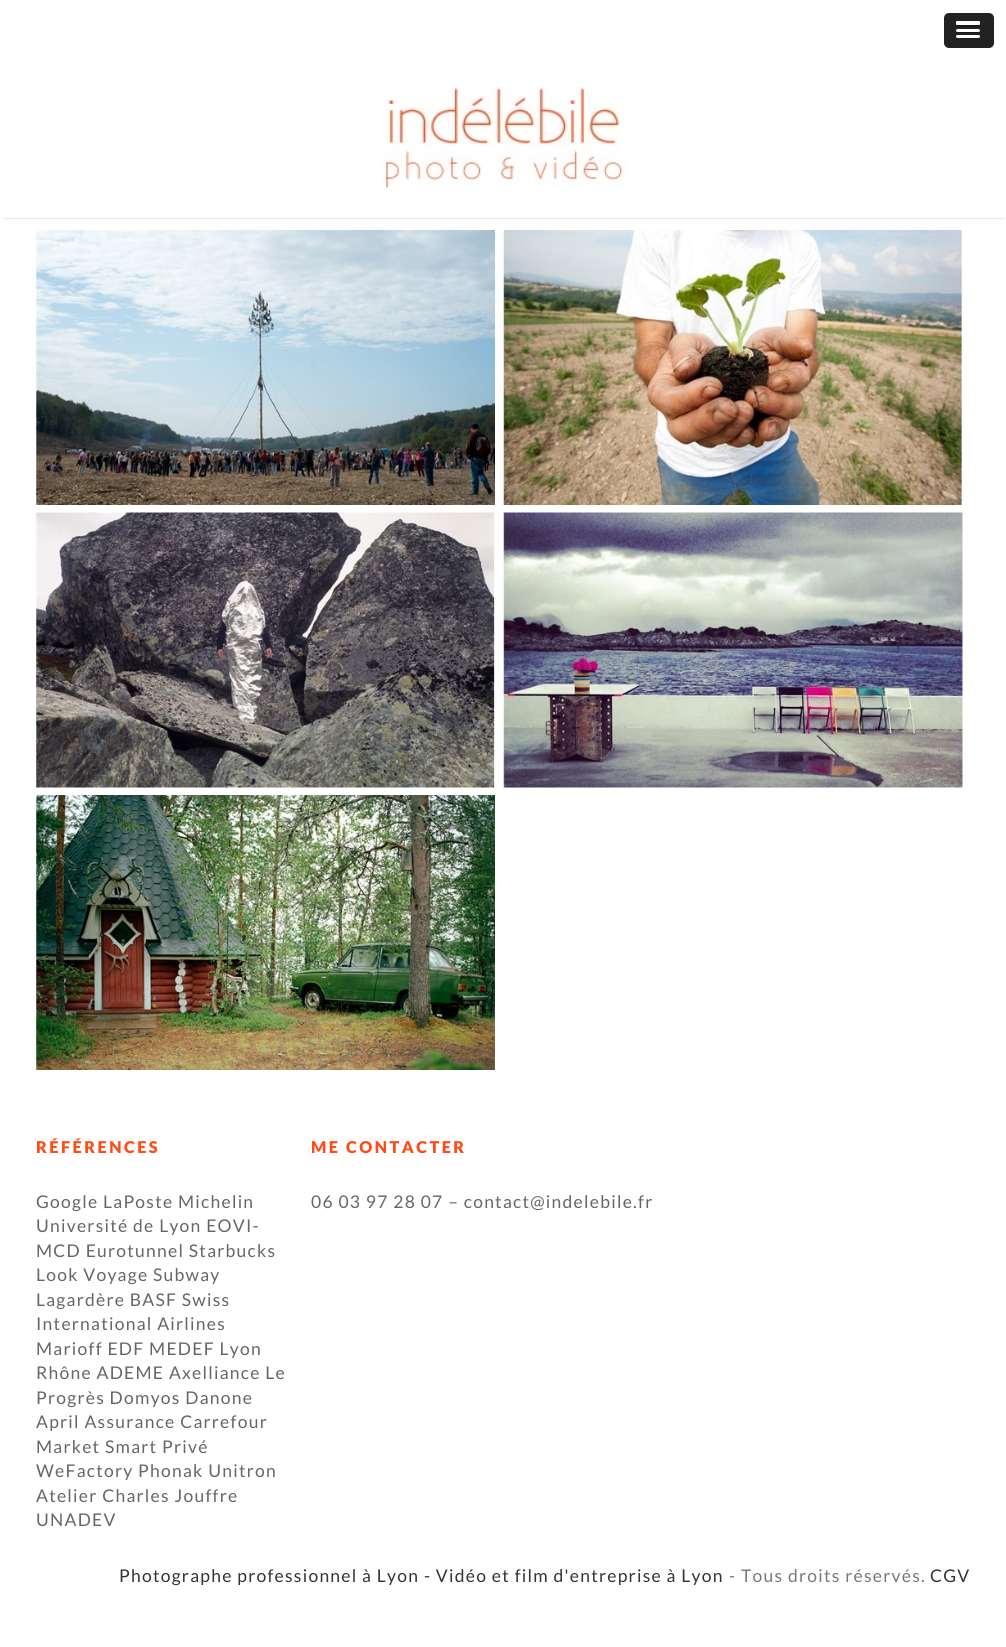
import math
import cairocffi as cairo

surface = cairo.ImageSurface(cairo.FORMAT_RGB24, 1006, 1647)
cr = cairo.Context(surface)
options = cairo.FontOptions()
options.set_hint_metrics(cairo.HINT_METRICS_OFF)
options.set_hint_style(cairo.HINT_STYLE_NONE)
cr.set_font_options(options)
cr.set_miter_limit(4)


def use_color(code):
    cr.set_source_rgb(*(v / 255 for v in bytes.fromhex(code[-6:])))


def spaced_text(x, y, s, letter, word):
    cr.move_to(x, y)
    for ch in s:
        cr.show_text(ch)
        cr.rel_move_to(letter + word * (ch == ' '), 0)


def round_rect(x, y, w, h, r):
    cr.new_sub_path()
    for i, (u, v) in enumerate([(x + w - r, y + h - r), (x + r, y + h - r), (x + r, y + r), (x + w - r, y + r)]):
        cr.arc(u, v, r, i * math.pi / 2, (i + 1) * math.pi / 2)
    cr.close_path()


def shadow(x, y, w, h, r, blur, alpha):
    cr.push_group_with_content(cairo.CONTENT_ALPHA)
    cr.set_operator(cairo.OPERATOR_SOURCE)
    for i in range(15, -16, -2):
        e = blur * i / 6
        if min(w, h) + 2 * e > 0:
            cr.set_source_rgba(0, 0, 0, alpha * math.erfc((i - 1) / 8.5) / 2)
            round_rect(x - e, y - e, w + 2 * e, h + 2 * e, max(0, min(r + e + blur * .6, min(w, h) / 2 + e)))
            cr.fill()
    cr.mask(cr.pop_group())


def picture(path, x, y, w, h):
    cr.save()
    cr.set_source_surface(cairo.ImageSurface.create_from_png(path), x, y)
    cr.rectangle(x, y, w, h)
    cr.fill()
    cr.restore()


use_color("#ffffff")
cr.paint()
use_color("#222222")
round_rect(944, 13, 50, 35, 5)
cr.fill()
use_color("#1a1a1a")
cr.new_path()
cr.move_to(956, 23.5)
cr.line_to(956, 25)
cr.curve_to(956, 28, 957.5, 27, 960.5, 27)
cr.line_to(975.5, 27)
cr.curve_to(979, 27, 980.5, 28, 980, 24)
cr.curve_to(980, 24.5, 979.5, 25, 979, 25)
cr.line_to(957.5, 25)
cr.curve_to(957, 25, 956, 24.5, 956, 24)
cr.close_path()
cr.fill()
use_color("#ffffff")
round_rect(956, 21, 24, 4, 1)
cr.fill()
use_color("#1a1a1a")
cr.new_path()
cr.move_to(956.5, 30.5)
cr.curve_to(955.5, 31.5, 956, 32.5, 957, 33)
cr.line_to(975, 33)
cr.curve_to(975.5, 33, 981.5, 33.5, 980, 30.5)
cr.line_to(979, 31)
cr.line_to(957.5, 31)
cr.close_path()
cr.fill()
use_color("#ffffff")
round_rect(956, 29, 24, 3, 1.5)
cr.fill()
use_color("#1a1a1a")
cr.new_path()
cr.move_to(956.5, 36.5)
cr.curve_to(954, 39.5, 961, 39, 961, 39)
cr.line_to(975, 39)
cr.curve_to(975.5, 39, 981, 39.5, 980, 37)
cr.line_to(979, 37.5)
cr.line_to(957, 37.5)
cr.close_path()
cr.fill()
use_color("#ffffff")
round_rect(956, 35, 24, 3, 1.5)
cr.fill()
use_color("#cccccc")
shadow(3, 66, 1001, 152, 0, 1, 1)
use_color("#ffffff")
cr.rectangle(1, 64, 1005, 154)
cr.fill()
picture("img1.png", 379, 86, 250, 102)
picture("img2.png", 36, 230, 459, 275)
picture("img3.png", 503, 230, 460, 275)
picture("img4.png", 36, 512, 459, 276)
picture("img5.png", 503, 512, 460, 276)
picture("img6.png", 36, 795, 459, 275)
cr.select_font_face("Lato Black")
cr.set_font_size(16.25)
use_color("#ff4c17")
spaced_text(36, 1153, "RÉFÉRENCES", 2.5, 0)
cr.select_font_face("Lato")
cr.set_font_size(17.5)
use_color("#666666")
spaced_text(36, 1208, "Google LaPoste Michelin", 1.25, 0)
spaced_text(36, 1232, "Université de Lyon EOVI-", 1.25, 0)
spaced_text(36, 1257, "MCD Eurotunnel Starbucks", 1.25, 0)
spaced_text(36, 1281, "Look Voyage Subway", 1.25, 0)
spaced_text(36, 1306, "Lagardère BASF Swiss", 1.25, 0)
spaced_text(36, 1330, "International Airlines", 1.25, 0)
spaced_text(36, 1355, "Marioff EDF MEDEF Lyon", 1.25, 0)
spaced_text(36, 1379, "Rhône ADEME Axelliance Le", 1.25, 0)
spaced_text(36, 1404, "Progrès Domyos Danone", 1.25, 0)
spaced_text(36, 1428, "April Assurance Carrefour", 1.25, 0)
spaced_text(36, 1453, "Market Smart Privé", 1.25, 0)
spaced_text(36, 1477, "WeFactory Phonak Unitron", 1.25, 0)
spaced_text(36, 1502, "Atelier Charles Jouffre", 1.25, 0)
spaced_text(36, 1526, "UNADEV", 1.25, 0)
cr.select_font_face("Lato Black")
cr.set_font_size(16.25)
use_color("#ff4c17")
spaced_text(311, 1153, "ME CONTACTER", 2.5, 0)
cr.select_font_face("Lato")
cr.set_font_size(17.5)
use_color("#666666")
spaced_text(311, 1208, "06 03 97 28 07 – contact@indelebile.fr", 1.25, 0)
use_color("#333333")
spaced_text(119, 1582, "Photographe professionnel à Lyon - Vidéo et film d'entreprise à Lyon", 1.25, 0)
use_color("#787878")
spaced_text(729, 1582, "- Tous droits réservés.", 1.25, 0)
use_color("#333333")
spaced_text(930, 1582, "CGV", 1.25, 0)
surface.write_to_png("result.png")
